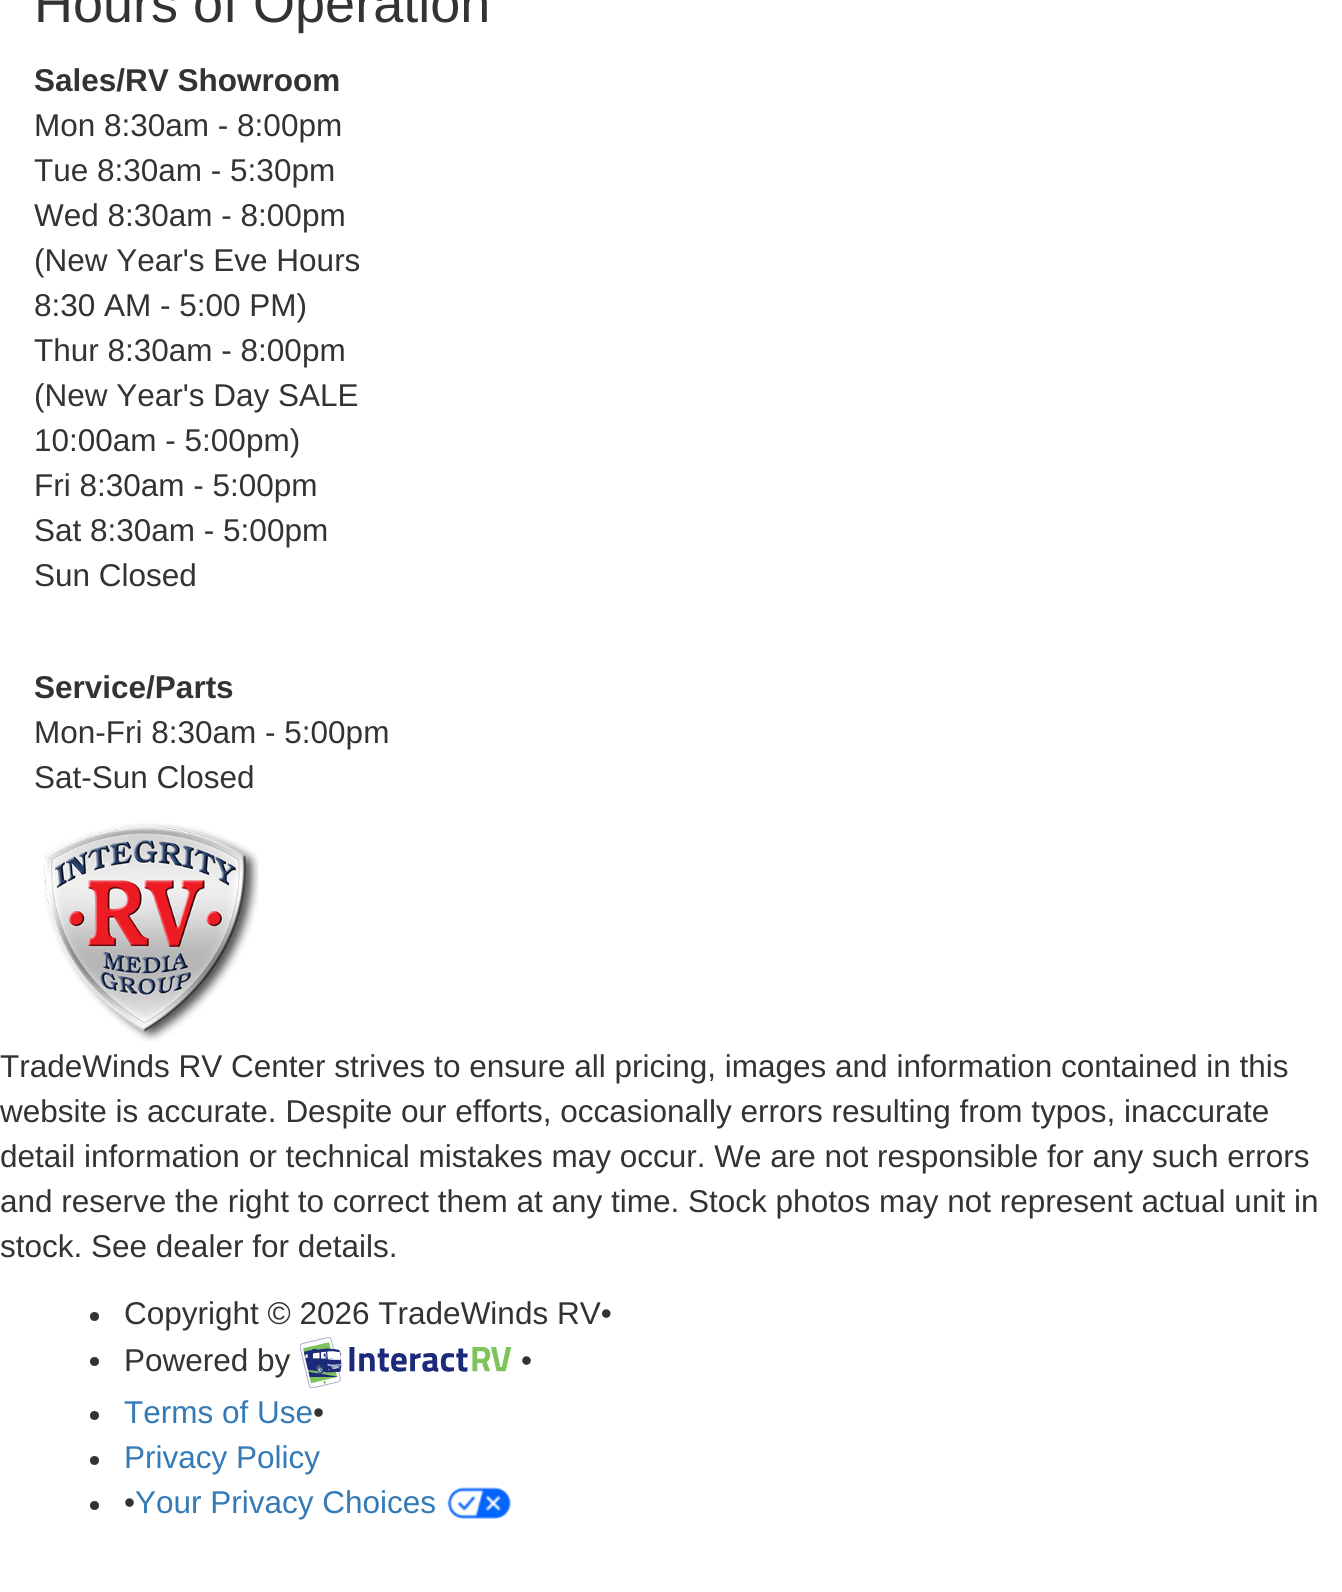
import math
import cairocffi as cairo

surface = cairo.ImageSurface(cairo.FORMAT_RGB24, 1342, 1592)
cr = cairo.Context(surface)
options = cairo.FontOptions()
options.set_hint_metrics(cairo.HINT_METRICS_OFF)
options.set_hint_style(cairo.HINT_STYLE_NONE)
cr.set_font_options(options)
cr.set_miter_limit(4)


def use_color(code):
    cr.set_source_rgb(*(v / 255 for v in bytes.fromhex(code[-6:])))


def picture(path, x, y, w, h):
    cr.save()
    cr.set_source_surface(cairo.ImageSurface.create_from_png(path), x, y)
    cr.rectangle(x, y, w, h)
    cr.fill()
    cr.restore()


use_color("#ffffff")
cr.paint()
cr.select_font_face("Liberation Sans")
cr.set_font_size(54)
use_color("#333333")
cr.move_to(34, 22)
cr.show_text("Hours of Operation")
cr.select_font_face("Liberation Sans", cairo.FONT_SLANT_NORMAL, cairo.FONT_WEIGHT_BOLD)
cr.set_font_size(31.5)
cr.move_to(34, 91)
cr.show_text("Sales/RV Showroom")
cr.select_font_face("Liberation Sans")
cr.move_to(34, 136)
cr.show_text("Mon 8:30am - 8:00pm")
cr.move_to(34, 181)
cr.show_text("Tue 8:30am - 5:30pm")
cr.move_to(34, 226)
cr.show_text("Wed 8:30am - 8:00pm")
cr.move_to(34, 271)
cr.show_text("(New Year's Eve Hours")
cr.move_to(34, 316)
cr.show_text("8:30 AM - 5:00 PM)")
cr.move_to(34, 361)
cr.show_text("Thur 8:30am - 8:00pm")
cr.move_to(34, 406)
cr.show_text("(New Year's Day SALE")
cr.move_to(34, 451)
cr.show_text("10:00am - 5:00pm)")
cr.move_to(34, 496)
cr.show_text("Fri 8:30am - 5:00pm")
cr.move_to(34, 541)
cr.show_text("Sat 8:30am - 5:00pm")
cr.move_to(34, 586)
cr.show_text("Sun Closed")
cr.select_font_face("Liberation Sans", cairo.FONT_SLANT_NORMAL, cairo.FONT_WEIGHT_BOLD)
cr.move_to(34, 698)
cr.show_text("Service/Parts")
cr.select_font_face("Liberation Sans")
cr.move_to(34, 743)
cr.show_text("Mon-Fri 8:30am - 5:00pm")
cr.move_to(34, 788)
cr.show_text("Sat-Sun Closed")
picture("img1.png", 43, 823, 216, 219)
cr.move_to(0, 1077)
cr.show_text("TradeWinds RV Center strives to ensure all pricing, images and information contained in this")
cr.move_to(0, 1122)
cr.show_text("website is accurate. Despite our efforts, occasionally errors resulting from typos, inaccurate")
cr.move_to(0, 1167)
cr.show_text("detail information or technical mistakes may occur. We are not responsible for any such errors")
cr.move_to(0, 1212)
cr.show_text("and reserve the right to correct them at any time. Stock photos may not represent actual unit in")
cr.move_to(0, 1257)
cr.show_text("stock. See dealer for details.")
cr.new_path()
cr.arc(94.5, 1316.5, 4.5, 0, 2 * math.pi)
cr.fill()
cr.move_to(124, 1324)
cr.show_text("Copyright © 2026 TradeWinds RV•")
cr.new_path()
cr.arc(94.5, 1361.5, 4.5, 0, 2 * math.pi)
cr.fill()
cr.move_to(124, 1371)
cr.show_text("Powered by")
picture("img2.png", 299, 1337, 213, 52)
cr.move_to(521, 1371)
cr.show_text("•")
cr.new_path()
cr.arc(94.5, 1415.5, 4.5, 0, 2 * math.pi)
cr.fill()
use_color("#337ab7")
cr.move_to(124, 1423)
cr.show_text("Terms of Use")
use_color("#333333")
cr.move_to(313, 1423)
cr.show_text("•")
cr.new_path()
cr.arc(94.5, 1460.5, 4.5, 0, 2 * math.pi)
cr.fill()
use_color("#337ab7")
cr.move_to(124, 1468)
cr.show_text("Privacy Policy")
use_color("#333333")
cr.new_path()
cr.arc(94.5, 1505.5, 4.5, 0, 2 * math.pi)
cr.fill()
cr.move_to(124, 1513)
cr.show_text("•")
use_color("#337ab7")
cr.move_to(135, 1513)
cr.show_text("Your Privacy Choices")
picture("img3.png", 447, 1487, 64, 32)
surface.write_to_png("result.png")
